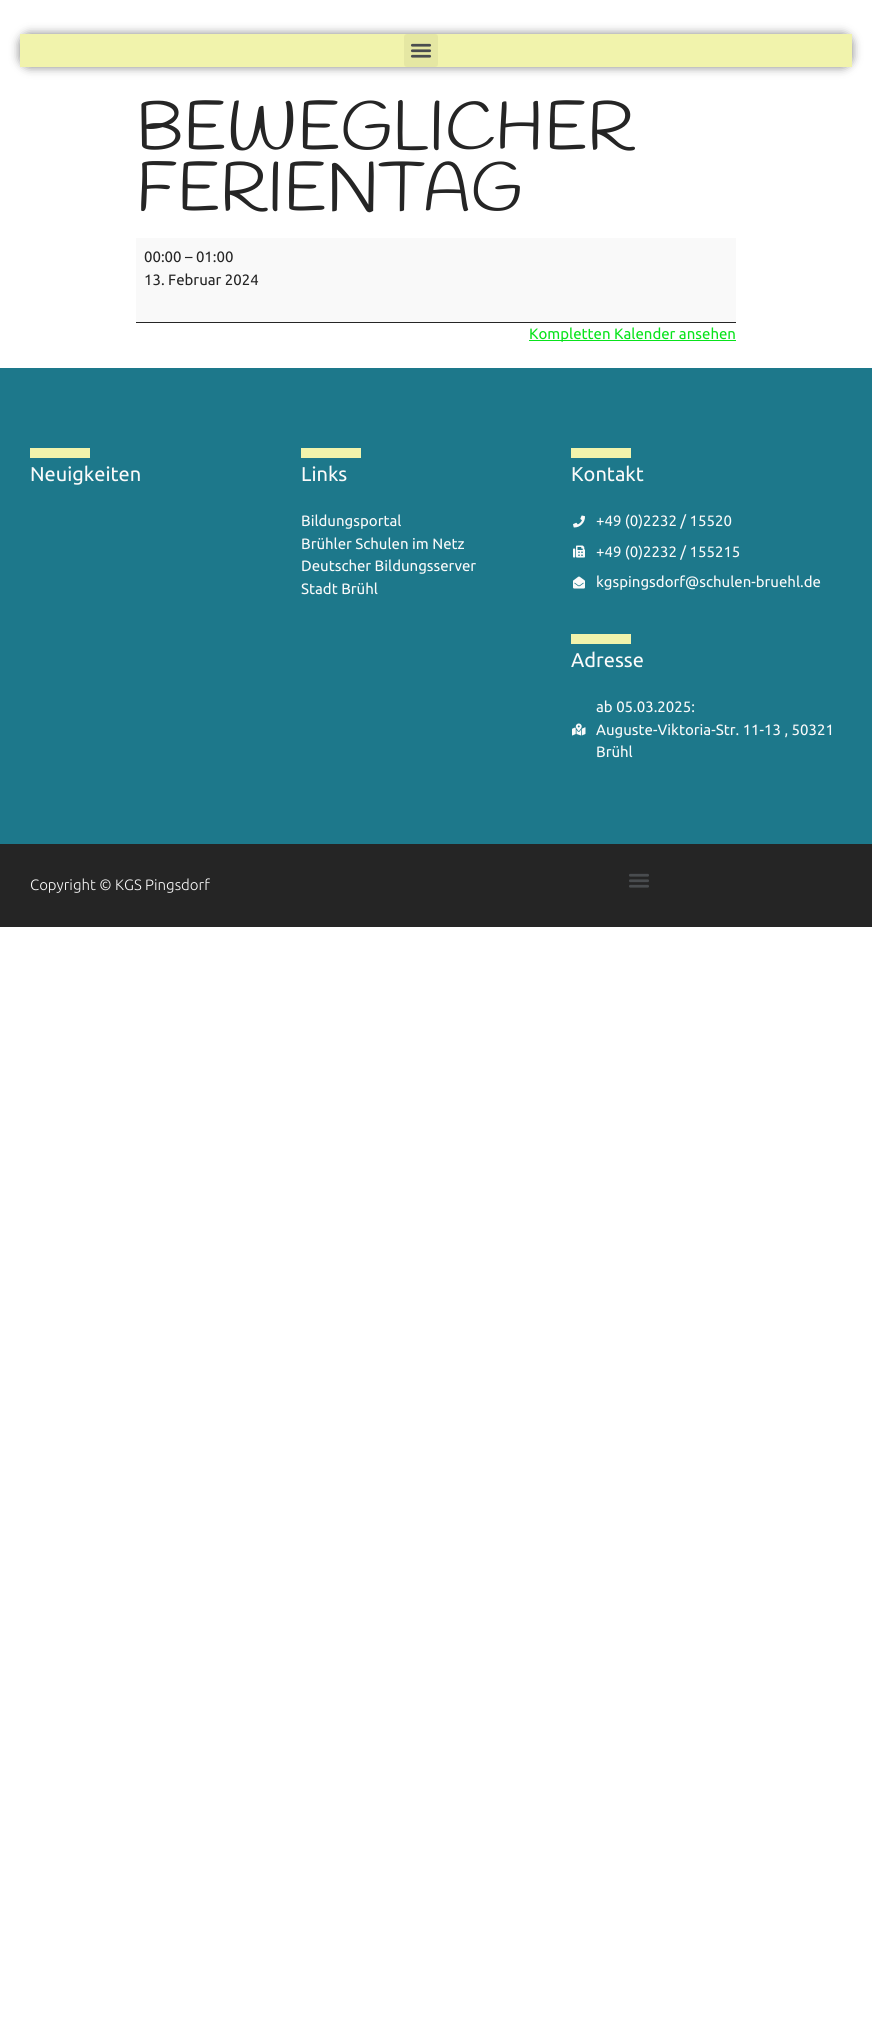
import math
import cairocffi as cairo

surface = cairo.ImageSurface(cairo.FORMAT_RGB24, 872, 2038)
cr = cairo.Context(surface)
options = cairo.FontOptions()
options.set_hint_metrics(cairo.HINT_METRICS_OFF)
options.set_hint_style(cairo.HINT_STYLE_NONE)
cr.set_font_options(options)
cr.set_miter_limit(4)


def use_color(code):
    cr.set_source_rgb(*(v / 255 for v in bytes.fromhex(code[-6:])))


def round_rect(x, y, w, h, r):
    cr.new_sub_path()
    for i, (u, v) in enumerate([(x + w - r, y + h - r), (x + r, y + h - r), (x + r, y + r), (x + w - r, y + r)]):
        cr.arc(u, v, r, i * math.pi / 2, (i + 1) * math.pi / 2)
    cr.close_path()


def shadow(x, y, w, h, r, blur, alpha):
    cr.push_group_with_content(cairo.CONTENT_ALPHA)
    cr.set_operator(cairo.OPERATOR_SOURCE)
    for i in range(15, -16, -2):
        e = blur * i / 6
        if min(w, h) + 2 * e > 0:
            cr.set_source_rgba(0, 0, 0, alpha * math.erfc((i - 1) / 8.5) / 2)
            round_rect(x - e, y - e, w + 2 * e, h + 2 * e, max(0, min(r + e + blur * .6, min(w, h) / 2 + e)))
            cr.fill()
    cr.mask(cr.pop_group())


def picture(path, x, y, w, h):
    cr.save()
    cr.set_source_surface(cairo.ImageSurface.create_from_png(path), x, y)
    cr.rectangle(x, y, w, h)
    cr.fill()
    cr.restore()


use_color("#ffffff")
cr.paint()
use_color("#000000")
shadow(20, 34, 832, 33, 10, 5, 0.5)
use_color("#f1f3ac")
cr.rectangle(20, 34, 832, 33)
cr.fill()
use_color("#e5e7a3")
round_rect(404, 34, 34, 33, 3)
cr.fill()
picture("img1.png", 410, 43, 22, 15)
cr.select_font_face("Handlee")
cr.set_font_size(68)
use_color("#252525")
cr.move_to(136, 149)
cr.show_text("BEWEGLICHER")
cr.move_to(136, 210)
cr.show_text("FERIENTAG")
use_color("#f9f9f9")
cr.rectangle(136, 238, 600, 84)
cr.fill()
use_color("#252525")
cr.rectangle(136, 322, 600, 1)
cr.fill()
cr.select_font_face("Ubuntu")
cr.set_font_size(15)
cr.move_to(144, 262)
cr.show_text("00:00 – 01:00")
cr.move_to(144, 285)
cr.show_text("13. Februar 2024")
use_color("#08e31b")
cr.rectangle(529, 340, 207, 1)
cr.fill()
cr.move_to(529, 339)
cr.show_text("Kompletten Kalender ansehen")
use_color("#1d788b")
cr.rectangle(0, 368, 872, 476)
cr.fill()
use_color("#f1f3ac")
cr.rectangle(30, 448, 60, 10)
cr.fill()
cr.set_font_size(20)
use_color("#fafafa")
cr.move_to(30, 481)
cr.show_text("Neuigkeiten")
use_color("#f1f3ac")
cr.rectangle(301, 448, 60, 10)
cr.fill()
use_color("#fafafa")
cr.move_to(301, 481)
cr.show_text("Links")
cr.set_font_size(15)
cr.move_to(301, 526)
cr.show_text("Bildungsportal")
cr.move_to(301, 549)
cr.show_text("Brühler Schulen im Netz")
cr.move_to(301, 571)
cr.show_text("Deutscher Bildungsserver")
cr.move_to(301, 594)
cr.show_text("Stadt Brühl")
use_color("#f1f3ac")
cr.rectangle(571, 448, 60, 10)
cr.fill()
cr.set_font_size(20)
use_color("#fafafa")
cr.move_to(571, 481)
cr.show_text("Kontakt")
picture("img2.png", 573, 515, 12, 13)
cr.set_font_size(15)
cr.move_to(596, 526)
cr.show_text("+49 (0)2232 / 15520")
picture("img3.png", 573, 545, 12, 13)
cr.move_to(596, 557)
cr.show_text("+49 (0)2232 / 155215")
picture("img4.png", 573, 576, 12, 13)
cr.move_to(596, 587)
cr.show_text("kgspingsdorf@schulen-bruehl.de")
use_color("#f1f3ac")
cr.rectangle(571, 634, 60, 10)
cr.fill()
cr.set_font_size(20)
use_color("#fafafa")
cr.move_to(571, 667)
cr.show_text("Adresse")
picture("img5.png", 572, 723, 14, 13)
cr.set_font_size(15)
cr.move_to(596, 712)
cr.show_text("ab 05.03.2025:")
cr.move_to(596, 735)
cr.show_text("Auguste-Viktoria-Str. 11-13 , 50321")
cr.move_to(596, 757)
cr.show_text("Brühl")
use_color("#252525")
cr.rectangle(0, 844, 872, 83)
cr.fill()
cr.select_font_face("Ubuntu Light")
use_color("#fafafa")
cr.move_to(30, 890)
cr.show_text("Copyright © KGS Pingsdorf")
picture("img6.png", 629, 873, 20, 15)
surface.write_to_png("result.png")
